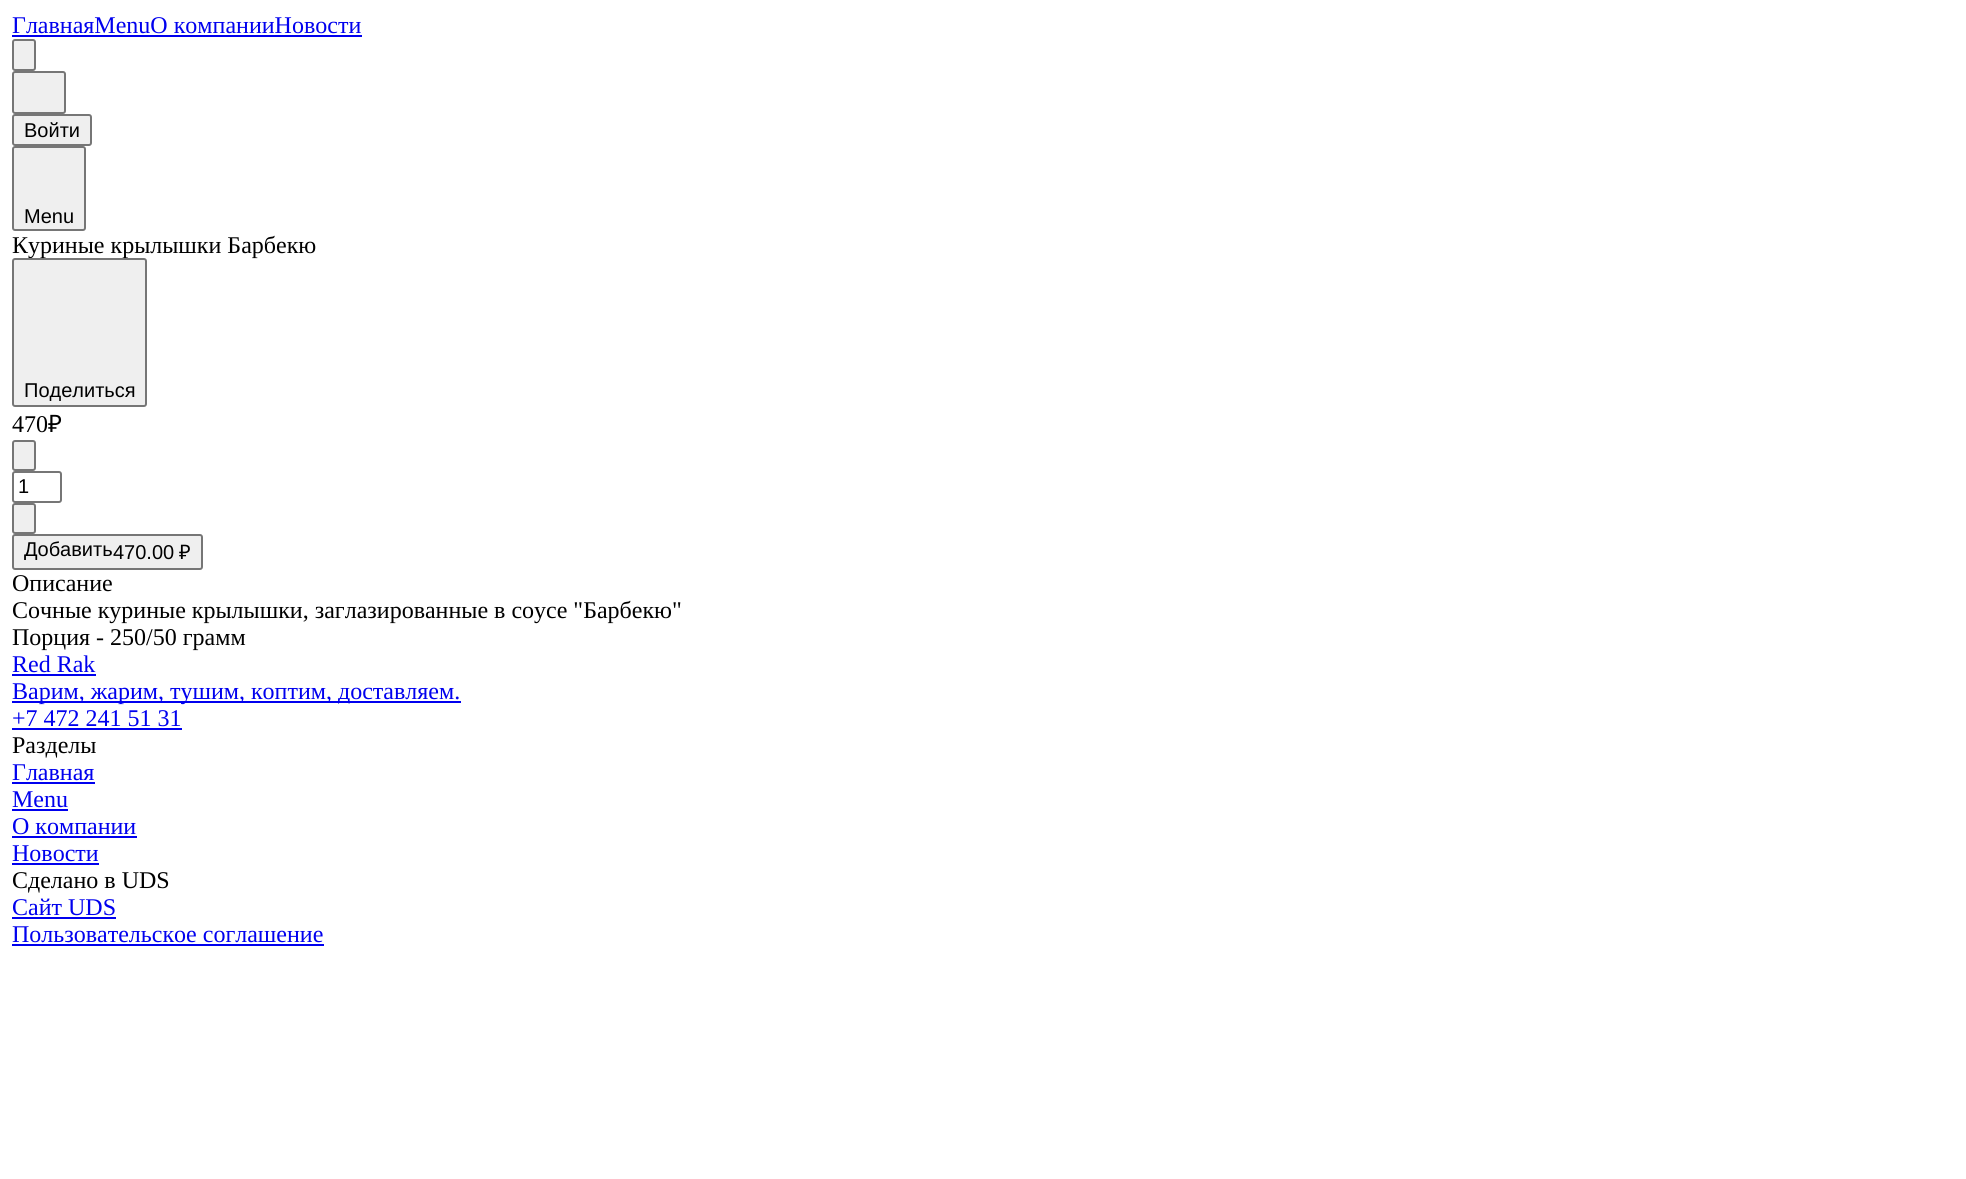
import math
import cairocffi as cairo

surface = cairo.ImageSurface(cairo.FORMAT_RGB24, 1966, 1179)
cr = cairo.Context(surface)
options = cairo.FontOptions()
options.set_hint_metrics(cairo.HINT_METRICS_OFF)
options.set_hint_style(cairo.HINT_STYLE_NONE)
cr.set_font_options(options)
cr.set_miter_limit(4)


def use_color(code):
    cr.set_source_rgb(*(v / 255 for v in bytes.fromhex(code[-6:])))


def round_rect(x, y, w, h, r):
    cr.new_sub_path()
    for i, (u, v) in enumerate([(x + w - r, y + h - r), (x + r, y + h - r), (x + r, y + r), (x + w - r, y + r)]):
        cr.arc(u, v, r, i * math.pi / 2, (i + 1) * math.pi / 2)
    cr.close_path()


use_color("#ffffff")
cr.paint()
cr.select_font_face("Liberation Serif")
cr.set_font_size(24)
use_color("#0000ee")
cr.move_to(12, 33)
cr.show_text("ГлавнаяMenuО компанииНовости")
cr.rectangle(12, 35, 350, 2)
cr.fill()
use_color("#efefef")
round_rect(13, 40, 22, 30, 2)
cr.fill_preserve()
use_color("#767676")
cr.stroke()
use_color("#efefef")
round_rect(13, 72, 52, 41, 2)
cr.fill_preserve()
use_color("#767676")
cr.stroke()
use_color("#efefef")
round_rect(13, 115, 78, 30, 2)
cr.fill_preserve()
use_color("#767676")
cr.stroke()
cr.select_font_face("Liberation Sans")
cr.set_font_size(20)
use_color("#000000")
cr.move_to(24, 137)
cr.show_text("Войти")
use_color("#efefef")
round_rect(13, 147, 72, 83, 2)
cr.fill_preserve()
use_color("#767676")
cr.stroke()
use_color("#000000")
cr.move_to(24, 223)
cr.show_text("Menu")
cr.select_font_face("Liberation Serif")
cr.set_font_size(24)
cr.move_to(12, 253)
cr.show_text("Куриные крылышки Барбекю")
use_color("#efefef")
round_rect(13, 259, 133, 147, 2)
cr.fill_preserve()
use_color("#767676")
cr.stroke()
cr.select_font_face("Liberation Sans")
cr.set_font_size(20)
use_color("#000000")
cr.move_to(24, 397)
cr.show_text("Поделиться")
cr.select_font_face("Liberation Serif")
cr.set_font_size(24)
cr.move_to(12, 432)
cr.show_text("470")
cr.select_font_face("Noto Sans")
cr.move_to(48, 432)
cr.show_text("₽")
use_color("#efefef")
round_rect(13, 441, 22, 29, 2)
cr.fill_preserve()
use_color("#767676")
cr.stroke()
round_rect(13, 472, 48, 30, 2)
cr.stroke()
cr.select_font_face("Liberation Sans")
cr.set_font_size(20)
use_color("#000000")
cr.move_to(18, 493)
cr.show_text("1")
use_color("#efefef")
round_rect(13, 504, 22, 29, 2)
cr.fill_preserve()
use_color("#767676")
cr.stroke()
use_color("#efefef")
round_rect(13, 535, 189, 34, 2)
cr.fill_preserve()
use_color("#767676")
cr.stroke()
use_color("#000000")
cr.move_to(24, 556)
cr.show_text("Добавить")
cr.move_to(113, 559)
cr.show_text("470.00")
cr.select_font_face("Noto Sans")
cr.move_to(179, 559)
cr.show_text("₽")
cr.select_font_face("Liberation Serif")
cr.set_font_size(24)
cr.move_to(12, 591)
cr.show_text("Описание")
cr.move_to(12, 618)
cr.show_text("Сочные куриные крылышки, заглазированные в соусе \"Барбекю\"")
cr.move_to(12, 645)
cr.show_text("Порция - 250/50 грамм")
use_color("#0000ee")
cr.move_to(12, 672)
cr.show_text("Red Rak")
cr.rectangle(12, 674, 84, 2)
cr.fill()
cr.rectangle(12, 701, 449, 2)
cr.fill()
cr.move_to(12, 699)
cr.show_text("Варим, жарим, тушим, коптим, доставляем.")
cr.move_to(12, 726)
cr.show_text("+7 472 241 51 31")
cr.rectangle(12, 728, 170, 2)
cr.fill()
use_color("#000000")
cr.move_to(12, 753)
cr.show_text("Разделы")
use_color("#0000ee")
cr.move_to(12, 780)
cr.show_text("Главная")
cr.rectangle(12, 782, 83, 2)
cr.fill()
cr.move_to(12, 807)
cr.show_text("Menu")
cr.rectangle(12, 809, 56, 2)
cr.fill()
cr.move_to(12, 834)
cr.show_text("О компании")
cr.rectangle(12, 836, 125, 2)
cr.fill()
cr.move_to(12, 861)
cr.show_text("Новости")
cr.rectangle(12, 863, 87, 2)
cr.fill()
use_color("#000000")
cr.move_to(12, 888)
cr.show_text("Сделано в UDS")
use_color("#0000ee")
cr.move_to(12, 915)
cr.show_text("Сайт UDS")
cr.rectangle(12, 917, 104, 2)
cr.fill()
cr.move_to(12, 942)
cr.show_text("Пользовательское соглашение")
cr.rectangle(12, 944, 312, 2)
cr.fill()
surface.write_to_png("result.png")
